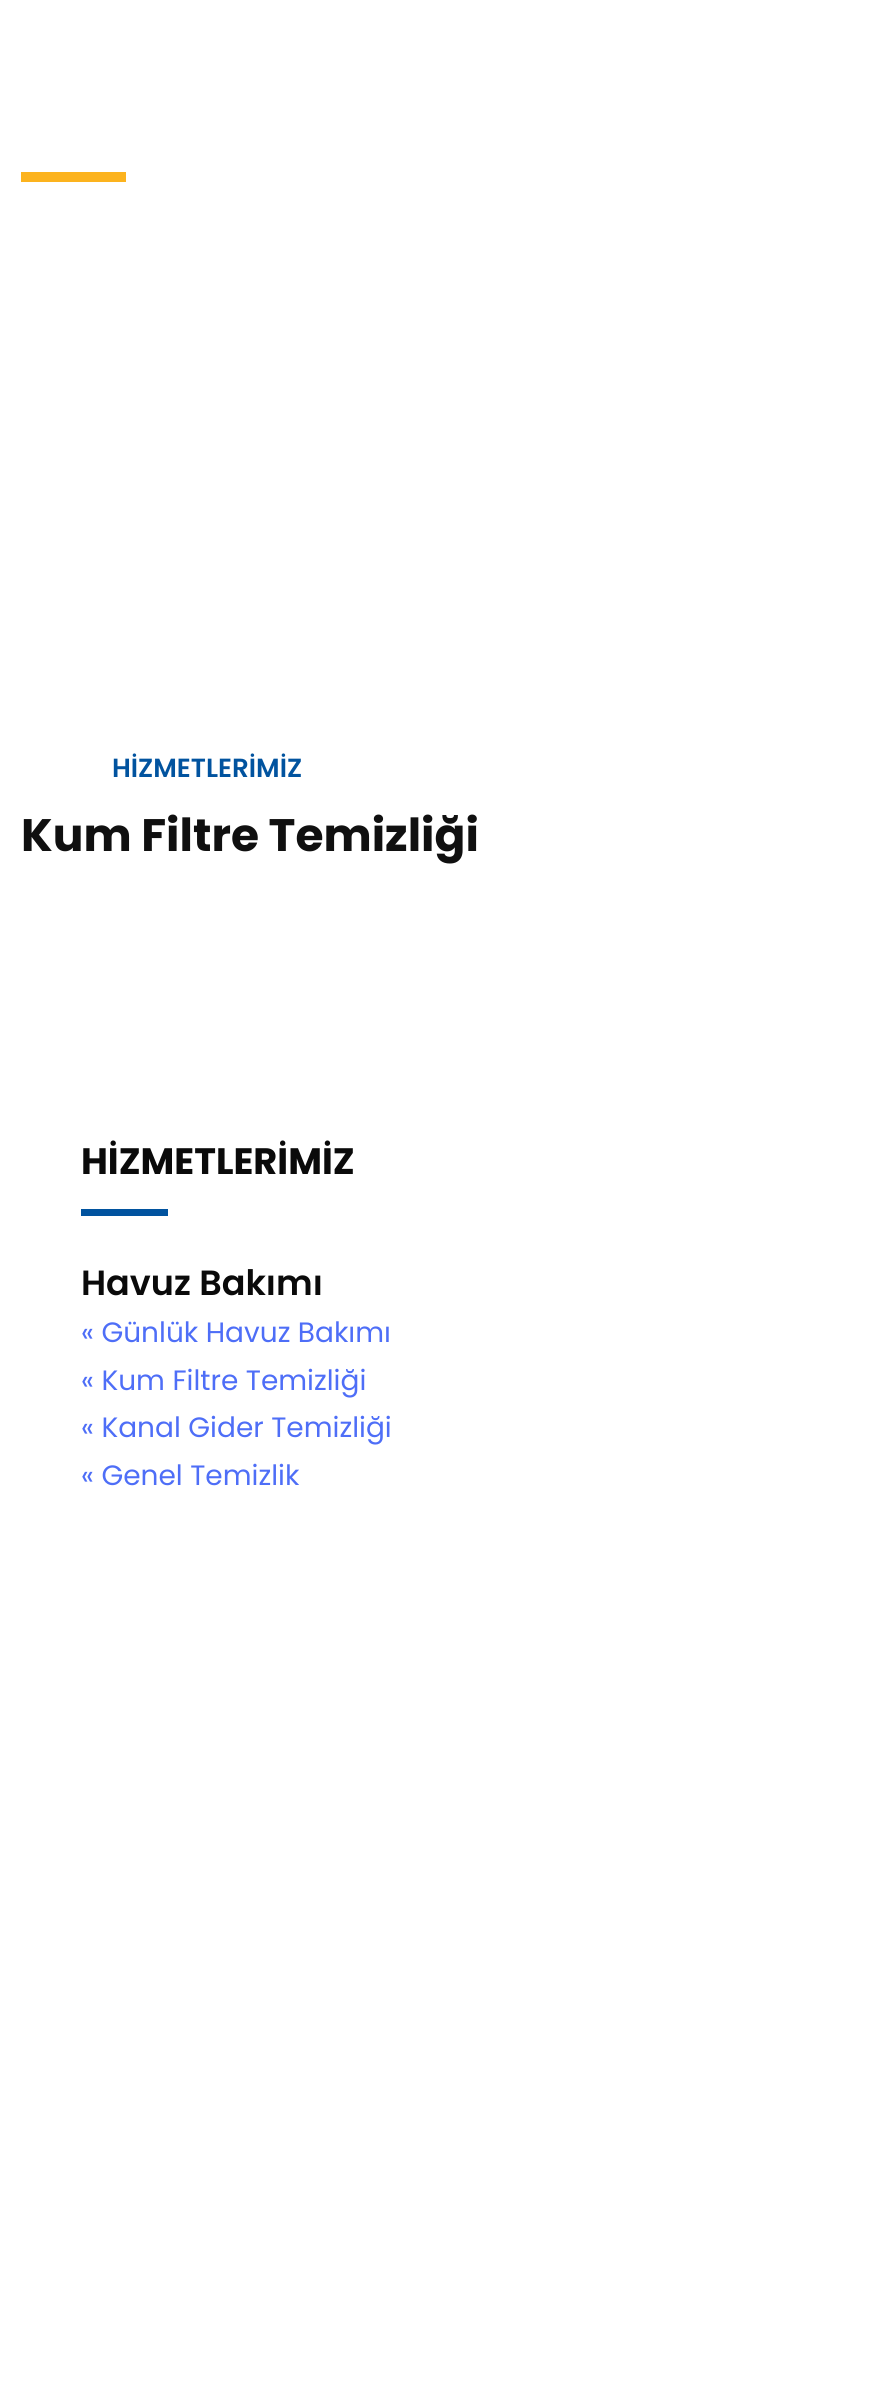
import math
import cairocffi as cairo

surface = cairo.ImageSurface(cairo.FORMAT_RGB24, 886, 2395)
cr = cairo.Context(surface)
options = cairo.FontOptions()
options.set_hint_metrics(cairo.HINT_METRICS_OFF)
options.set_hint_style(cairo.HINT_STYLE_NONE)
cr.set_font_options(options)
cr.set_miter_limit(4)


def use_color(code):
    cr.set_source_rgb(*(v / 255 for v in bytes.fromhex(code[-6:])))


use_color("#ffffff")
cr.paint()
use_color("#fcb31e")
cr.rectangle(21, 172, 105, 10)
cr.fill()
cr.select_font_face("Poppins SemiBold")
cr.set_font_size(26.25)
use_color("#01539f")
cr.move_to(112, 777)
cr.show_text("HİZMETLERİMİZ")
cr.select_font_face("Poppins", cairo.FONT_SLANT_NORMAL, cairo.FONT_WEIGHT_BOLD)
cr.set_font_size(45.5)
use_color("#101010")
cr.move_to(21, 851)
cr.show_text("Kum Filtre Temizliği")
cr.set_font_size(36.75)
use_color("#0a0a0a")
cr.move_to(81, 1174)
cr.show_text("HİZMETLERİMİZ")
use_color("#01539f")
cr.rectangle(81, 1209, 87, 7)
cr.fill()
cr.select_font_face("Poppins SemiBold")
cr.set_font_size(35)
use_color("#0a0a0a")
cr.move_to(81, 1295)
cr.show_text("Havuz Bakımı")
cr.select_font_face("Poppins")
cr.set_font_size(28)
use_color("#4e6ef7")
cr.move_to(81, 1342)
cr.show_text("« Günlük Havuz Bakımı")
cr.move_to(81, 1390)
cr.show_text("« Kum Filtre Temizliği")
cr.move_to(81, 1437)
cr.show_text("« Kanal Gider Temizliği")
cr.move_to(81, 1485)
cr.show_text("« Genel Temizlik")
surface.write_to_png("result.png")
